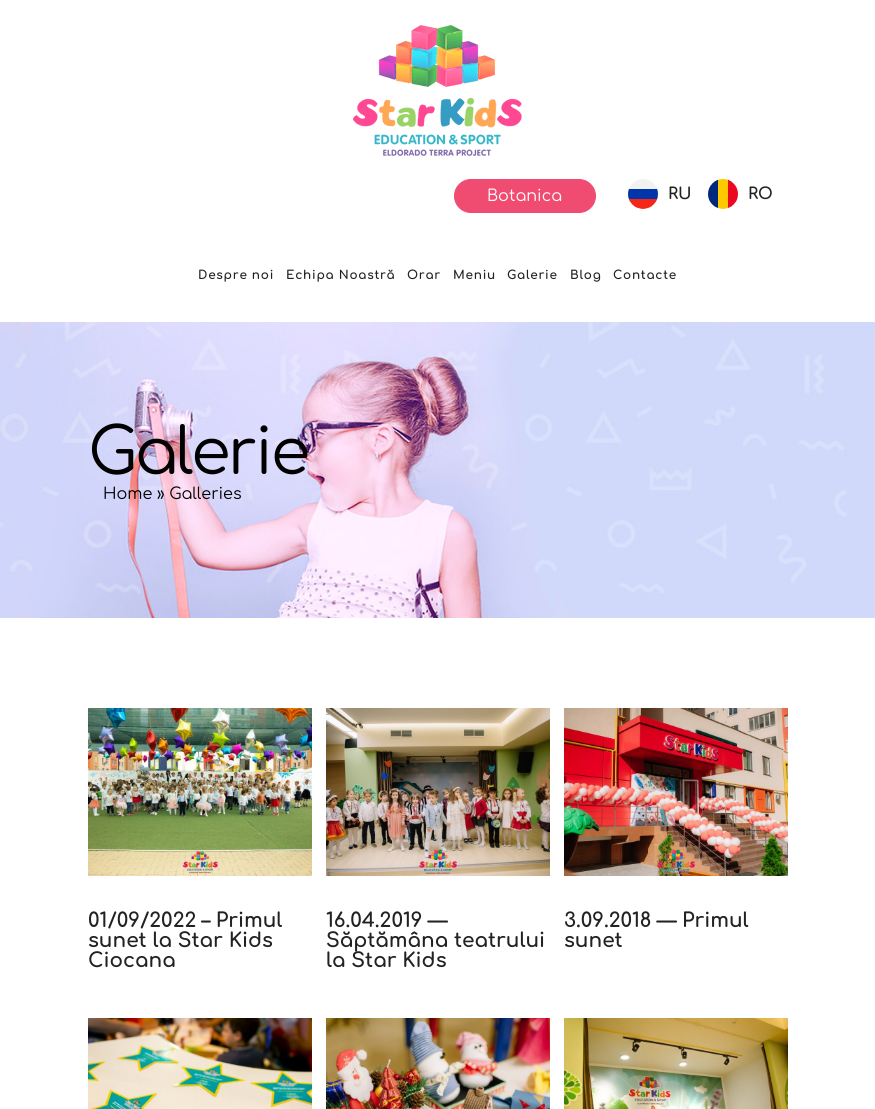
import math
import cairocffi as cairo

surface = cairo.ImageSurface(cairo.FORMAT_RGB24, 875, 1109)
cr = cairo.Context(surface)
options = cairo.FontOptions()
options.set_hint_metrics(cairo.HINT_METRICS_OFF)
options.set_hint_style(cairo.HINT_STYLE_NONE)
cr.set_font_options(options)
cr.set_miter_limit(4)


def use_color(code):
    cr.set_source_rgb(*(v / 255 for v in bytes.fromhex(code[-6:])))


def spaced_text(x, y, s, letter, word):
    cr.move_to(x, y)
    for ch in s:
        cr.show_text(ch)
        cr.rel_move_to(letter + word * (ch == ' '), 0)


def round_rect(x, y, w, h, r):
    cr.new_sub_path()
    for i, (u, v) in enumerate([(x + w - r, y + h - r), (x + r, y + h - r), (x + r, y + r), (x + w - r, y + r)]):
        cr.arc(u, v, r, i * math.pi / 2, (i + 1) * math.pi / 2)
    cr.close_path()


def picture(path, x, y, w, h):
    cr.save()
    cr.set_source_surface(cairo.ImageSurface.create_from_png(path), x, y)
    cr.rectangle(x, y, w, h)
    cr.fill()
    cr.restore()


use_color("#ffffff")
cr.paint()
picture("img1.png", 353, 25, 169, 131)
use_color("#f04c72")
round_rect(454.5, 179.5, 141, 33, 16.5)
cr.fill_preserve()
cr.set_line_width(1)
cr.stroke()
cr.select_font_face("Comfortaa")
cr.set_font_size(16)
use_color("#ffffff")
cr.move_to(487, 201)
cr.show_text("Botanica")
picture("img2.png", 628, 179, 30, 30)
cr.select_font_face("Comfortaa", cairo.FONT_SLANT_NORMAL, cairo.FONT_WEIGHT_BOLD)
use_color("#222222")
cr.move_to(668, 199)
cr.show_text("RU")
picture("img3.png", 708, 179, 30, 30)
cr.move_to(748, 199)
cr.show_text("RO")
cr.set_font_size(12)
spaced_text(198, 279, "Despre noi", 0.75, 0)
spaced_text(286, 279, "Echipa Noastră", 0.75, 0)
spaced_text(407, 279, "Orar", 0.75, 0)
spaced_text(453, 279, "Meniu", 0.75, 0)
spaced_text(507, 279, "Galerie", 0.75, 0)
spaced_text(570, 279, "Blog", 0.75, 0)
spaced_text(613, 279, "Contacte", 0.75, 0)
picture("img4.png", 0, 322, 875, 296)
cr.select_font_face("Comfortaa")
cr.set_font_size(64)
use_color("#000000")
spaced_text(88, 474, "Galerie", -2.5, 0)
cr.set_font_size(16)
cr.move_to(103, 499)
cr.show_text("Home")
cr.move_to(157, 499)
cr.show_text("» Galleries")
picture("img5.png", 88, 708, 224, 168)
cr.select_font_face("Comfortaa", cairo.FONT_SLANT_NORMAL, cairo.FONT_WEIGHT_BOLD)
cr.set_font_size(20)
use_color("#222222")
cr.move_to(88, 927)
cr.show_text("01/09/2022 – Primul")
cr.move_to(88, 947)
cr.show_text("sunet la Star Kids")
cr.move_to(88, 967)
cr.show_text("Ciocana")
picture("img6.png", 326, 708, 224, 168)
cr.move_to(326, 927)
cr.show_text("16.04.2019 —")
cr.move_to(326, 947)
cr.show_text("Săptămâna teatrului")
cr.move_to(326, 967)
cr.show_text("la Star Kids")
picture("img7.png", 564, 708, 224, 168)
cr.move_to(564, 927)
cr.show_text("3.09.2018 — Primul")
cr.move_to(564, 947)
cr.show_text("sunet")
picture("img8.png", 88, 1018, 224, 91)
picture("img9.png", 326, 1018, 224, 91)
picture("img10.png", 564, 1018, 224, 91)
surface.write_to_png("result.png")
